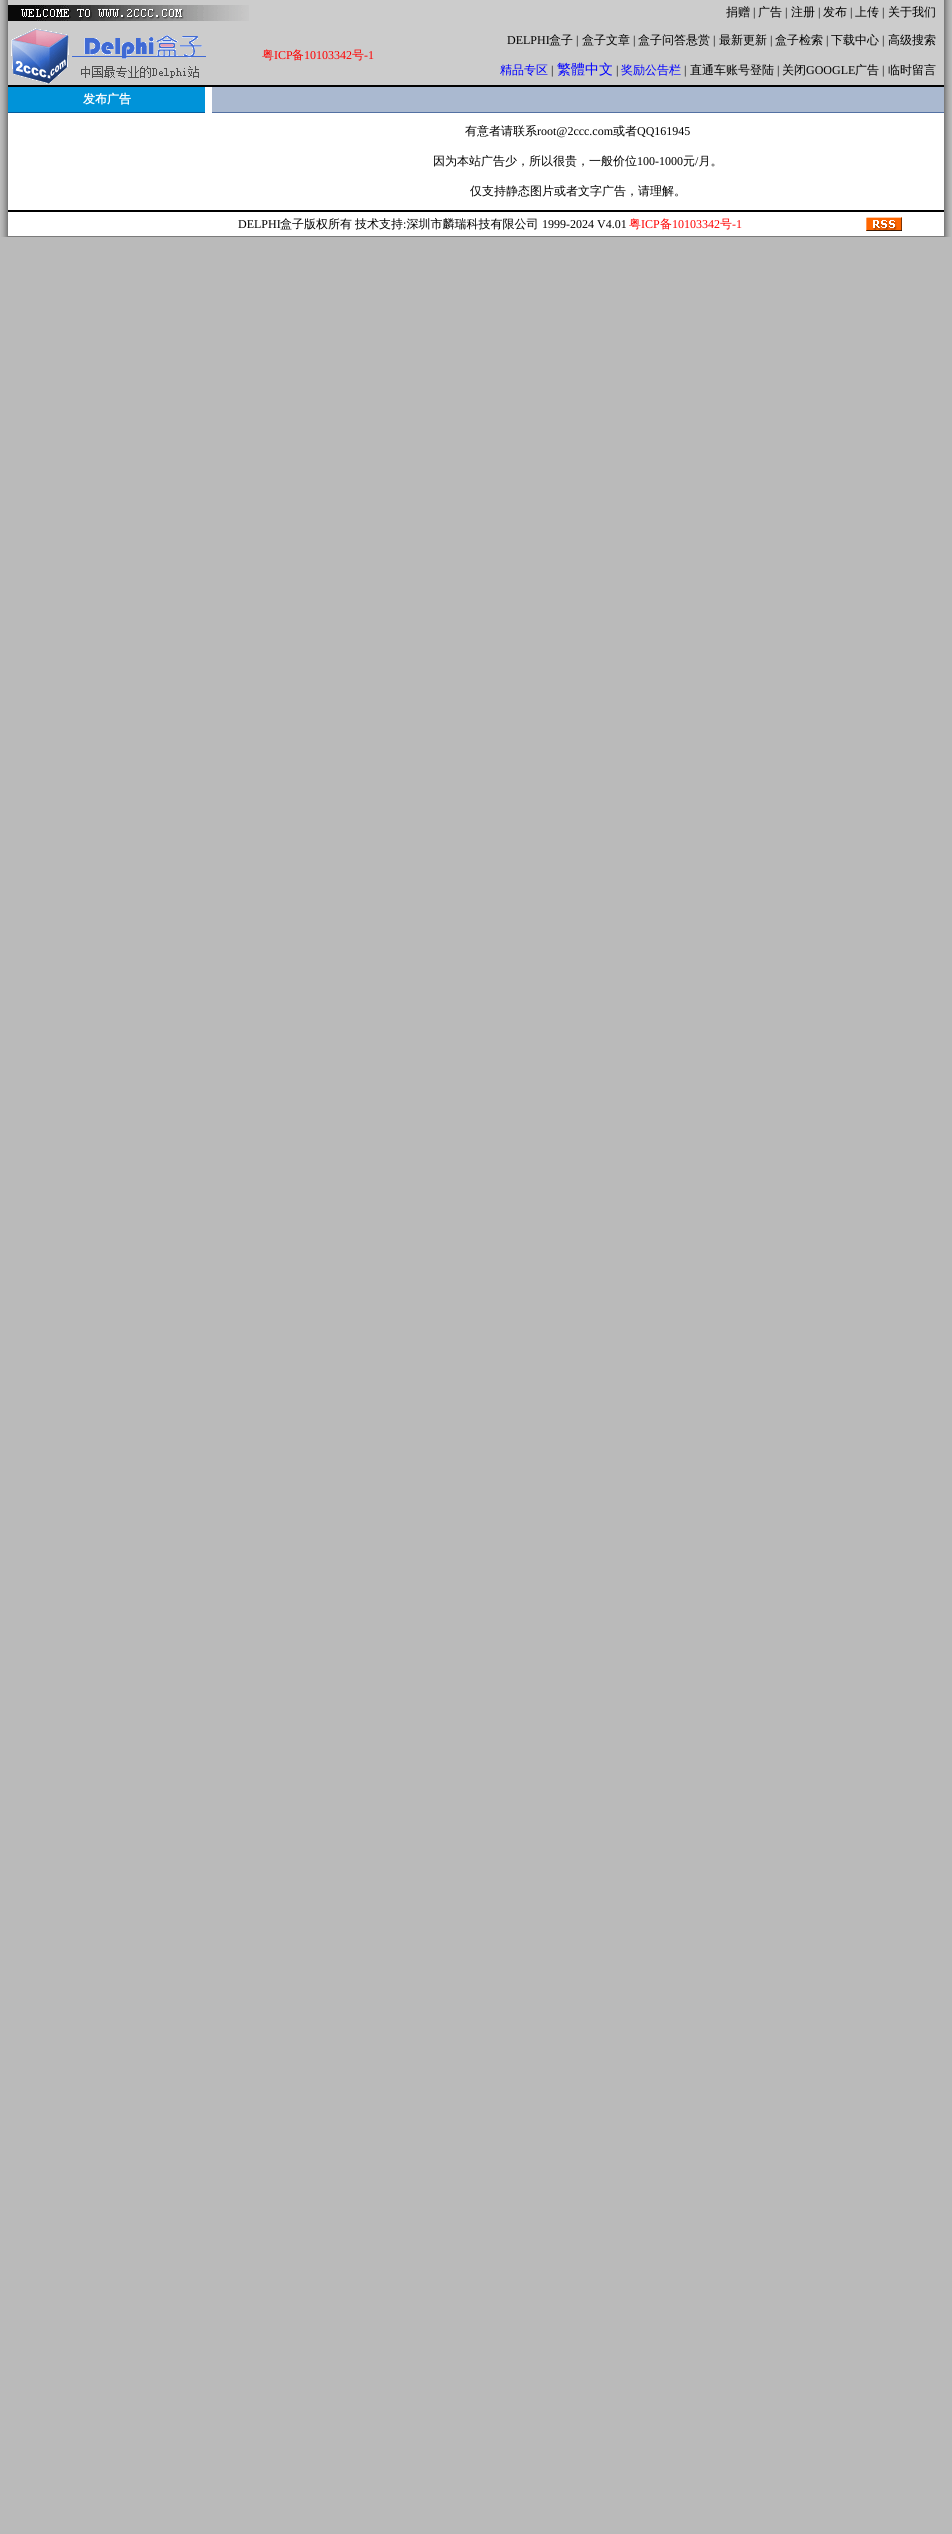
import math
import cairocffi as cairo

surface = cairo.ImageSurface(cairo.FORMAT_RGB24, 952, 2534)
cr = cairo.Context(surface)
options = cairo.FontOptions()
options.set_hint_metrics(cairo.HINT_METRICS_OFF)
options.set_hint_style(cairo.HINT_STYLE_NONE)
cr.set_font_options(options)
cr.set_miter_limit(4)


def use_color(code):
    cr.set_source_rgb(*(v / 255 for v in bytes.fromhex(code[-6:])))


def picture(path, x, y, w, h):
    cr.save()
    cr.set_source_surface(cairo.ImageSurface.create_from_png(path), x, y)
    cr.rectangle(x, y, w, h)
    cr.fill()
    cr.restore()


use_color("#bababa")
cr.paint()
picture("img1.png", 1, 0, 7, 25)
use_color("#cccccc")
cr.rectangle(8, 0, 936, 25)
cr.fill()
picture("img2.png", 8, 5, 241, 16)
picture("img3.png", 944, 0, 7, 25)
cr.select_font_face("WenQuanYi Zen Hei Medium")
cr.set_font_size(12)
use_color("#000000")
cr.move_to(726, 16)
cr.show_text("捐赠")
cr.select_font_face("Liberation Serif")
cr.move_to(753, 16)
cr.show_text("|")
cr.select_font_face("WenQuanYi Zen Hei Medium")
cr.move_to(758, 16)
cr.show_text("广告")
cr.select_font_face("Liberation Serif")
cr.move_to(785, 16)
cr.show_text("|")
cr.select_font_face("WenQuanYi Zen Hei Medium")
cr.move_to(791, 16)
cr.show_text("注册")
cr.select_font_face("Liberation Serif")
cr.move_to(818, 16)
cr.show_text("|")
cr.select_font_face("WenQuanYi Zen Hei Medium")
cr.move_to(823, 16)
cr.show_text("发布")
cr.select_font_face("Liberation Serif")
cr.move_to(850, 16)
cr.show_text("|")
cr.select_font_face("WenQuanYi Zen Hei Medium")
cr.move_to(855, 16)
cr.show_text("上传")
cr.select_font_face("Liberation Serif")
cr.move_to(882, 16)
cr.show_text("|")
cr.select_font_face("WenQuanYi Zen Hei Medium")
cr.move_to(888, 16)
cr.show_text("关于我们")
picture("img4.png", 1, 25, 7, 30)
use_color("#cccccc")
cr.rectangle(8, 25, 391, 60)
cr.fill()
picture("img5.png", 11, 28, 195, 56)
cr.rectangle(399, 25, 545, 30)
cr.fill()
cr.select_font_face("Liberation Serif")
use_color("#000000")
cr.move_to(507, 44)
cr.show_text("DELPHI")
cr.select_font_face("WenQuanYi Zen Hei Medium")
cr.move_to(549, 44)
cr.show_text("盒子")
cr.select_font_face("Liberation Serif")
cr.move_to(576, 44)
cr.show_text("|")
cr.select_font_face("WenQuanYi Zen Hei Medium")
cr.move_to(582, 44)
cr.show_text("盒子文章")
cr.select_font_face("Liberation Serif")
cr.move_to(633, 44)
cr.show_text("|")
cr.select_font_face("WenQuanYi Zen Hei Medium")
cr.move_to(638, 44)
cr.show_text("盒子问答悬赏")
cr.select_font_face("Liberation Serif")
cr.move_to(713, 44)
cr.show_text("|")
cr.select_font_face("WenQuanYi Zen Hei Medium")
cr.move_to(719, 44)
cr.show_text("最新更新")
cr.select_font_face("Liberation Serif")
cr.move_to(770, 44)
cr.show_text("|")
cr.select_font_face("WenQuanYi Zen Hei Medium")
cr.move_to(775, 44)
cr.show_text("盒子检索")
cr.select_font_face("Liberation Serif")
cr.move_to(826, 44)
cr.show_text("|")
cr.select_font_face("WenQuanYi Zen Hei Medium")
cr.move_to(831, 44)
cr.show_text("下载中心")
cr.select_font_face("Liberation Serif")
cr.move_to(882, 44)
cr.show_text("|")
cr.select_font_face("WenQuanYi Zen Hei Medium")
cr.move_to(888, 44)
cr.show_text("高级搜索")
picture("img6.png", 944, 25, 7, 30)
use_color("#ff0000")
cr.move_to(262, 59)
cr.show_text("粤")
cr.select_font_face("Liberation Serif")
cr.move_to(274, 59)
cr.show_text("ICP")
cr.select_font_face("WenQuanYi Zen Hei Medium")
cr.move_to(292, 59)
cr.show_text("备")
cr.select_font_face("Liberation Serif")
cr.move_to(304, 59)
cr.show_text("10103342")
cr.select_font_face("WenQuanYi Zen Hei Medium")
cr.move_to(352, 59)
cr.show_text("号")
cr.select_font_face("Liberation Serif")
cr.move_to(364, 59)
cr.show_text("-1")
picture("img4.png", 1, 55, 7, 30)
use_color("#cccccc")
cr.rectangle(399, 55, 545, 30)
cr.fill()
cr.select_font_face("WenQuanYi Zen Hei Medium")
use_color("#0000ff")
cr.move_to(500, 74)
cr.show_text("精品专区")
cr.select_font_face("Liberation Serif")
use_color("#000000")
cr.move_to(551, 74)
cr.show_text("|")
cr.select_font_face("WenQuanYi Zen Hei Medium")
cr.set_font_size(14)
use_color("#0000ff")
cr.move_to(557, 74)
cr.show_text("繁體中文")
cr.select_font_face("Liberation Serif")
cr.set_font_size(12)
use_color("#000000")
cr.move_to(616, 74)
cr.show_text("|")
cr.select_font_face("WenQuanYi Zen Hei Medium")
use_color("#0000ff")
cr.move_to(621, 74)
cr.show_text("奖励公告栏")
cr.select_font_face("Liberation Serif")
use_color("#000000")
cr.move_to(684, 74)
cr.show_text("|")
cr.select_font_face("WenQuanYi Zen Hei Medium")
cr.move_to(690, 74)
cr.show_text("直通车账号登陆")
cr.select_font_face("Liberation Serif")
cr.move_to(777, 74)
cr.show_text("|")
cr.select_font_face("WenQuanYi Zen Hei Medium")
cr.move_to(782, 74)
cr.show_text("关闭")
cr.select_font_face("Liberation Serif")
cr.move_to(806, 74)
cr.show_text("GOOGLE")
cr.select_font_face("WenQuanYi Zen Hei Medium")
cr.move_to(855, 74)
cr.show_text("广告")
cr.select_font_face("Liberation Serif")
cr.move_to(882, 74)
cr.show_text("|")
cr.select_font_face("WenQuanYi Zen Hei Medium")
cr.move_to(888, 74)
cr.show_text("临时留言")
picture("img6.png", 944, 55, 7, 30)
picture("img7.png", 1, 85, 7, 2)
cr.rectangle(8, 85, 936, 2)
cr.fill()
picture("img8.png", 944, 85, 7, 2)
picture("img9.png", 1, 87, 7, 123)
use_color("#ffffff")
cr.rectangle(8, 113, 197, 97)
cr.fill()
use_color("#0093d9")
cr.rectangle(8, 87, 197, 25)
cr.fill()
cr.select_font_face("WenQuanYi Zen Hei", cairo.FONT_SLANT_NORMAL, cairo.FONT_WEIGHT_BOLD)
use_color("#ffffff")
cr.move_to(83, 103)
cr.show_text("发布广告")
use_color("#035b9c")
cr.rectangle(8, 112, 197, 1)
cr.fill()
use_color("#ffffff")
cr.rectangle(205, 87, 7, 123)
cr.fill()
picture("img10.png", 944, 87, 7, 123)
cr.rectangle(212, 113, 732, 97)
cr.fill()
use_color("#aab9d0")
cr.rectangle(212, 87, 732, 25)
cr.fill()
use_color("#5471a3")
cr.rectangle(212, 112, 732, 1)
cr.fill()
cr.select_font_face("WenQuanYi Zen Hei Medium")
use_color("#000000")
cr.move_to(465, 135)
cr.show_text("有意者请联系")
cr.select_font_face("Liberation Serif")
cr.move_to(537, 135)
cr.show_text("root@2ccc.com")
cr.select_font_face("WenQuanYi Zen Hei Medium")
cr.move_to(613, 135)
cr.show_text("或者")
cr.select_font_face("Liberation Serif")
cr.move_to(637, 135)
cr.show_text("QQ161945")
cr.select_font_face("WenQuanYi Zen Hei Medium")
cr.move_to(433, 165)
cr.show_text("因为本站广告少，所以很贵，一般价位")
cr.select_font_face("Liberation Serif")
cr.move_to(637, 165)
cr.show_text("100-1000")
cr.select_font_face("WenQuanYi Zen Hei Medium")
cr.move_to(683, 165)
cr.show_text("元 月。")
cr.select_font_face("Liberation Serif")
cr.move_to(695, 165)
cr.show_text("/")
cr.select_font_face("WenQuanYi Zen Hei Medium")
cr.move_to(470, 195)
cr.show_text("仅支持静态图片或者文字广告，请理解。")
picture("img11.png", 1, 210, 7, 2)
cr.rectangle(8, 210, 936, 2)
cr.fill()
picture("img12.png", 944, 210, 7, 2)
picture("img1.png", 1, 212, 7, 25)
use_color("#ffffff")
cr.rectangle(8, 212, 936, 24)
cr.fill()
use_color("#7b7b7b")
cr.rectangle(8, 236, 936, 1)
cr.fill()
picture("img3.png", 944, 212, 7, 25)
cr.select_font_face("Liberation Serif")
use_color("#000000")
cr.move_to(238, 228)
cr.show_text("DELPHI")
cr.select_font_face("WenQuanYi Zen Hei Medium")
cr.move_to(280, 228)
cr.show_text("盒子版权所有")
cr.move_to(355, 228)
cr.show_text("技术支持 深圳市麟瑞科技有限公司")
cr.select_font_face("Liberation Serif")
cr.move_to(542, 228)
cr.show_text("1999-2024 V4.01")
cr.select_font_face("WenQuanYi Zen Hei Medium")
use_color("#ff0000")
cr.move_to(629, 228)
cr.show_text("粤")
cr.select_font_face("Liberation Serif")
cr.move_to(641, 228)
cr.show_text("ICP")
cr.select_font_face("WenQuanYi Zen Hei Medium")
cr.move_to(660, 228)
cr.show_text("备")
cr.select_font_face("Liberation Serif")
cr.move_to(672, 228)
cr.show_text("10103342")
cr.select_font_face("WenQuanYi Zen Hei Medium")
cr.move_to(720, 228)
cr.show_text("号")
cr.select_font_face("Liberation Serif")
cr.move_to(732, 228)
cr.show_text("-1")
use_color("#000000")
cr.move_to(403, 228)
cr.show_text(":")
picture("img13.png", 866, 217, 36, 14)
surface.write_to_png("result.png")
